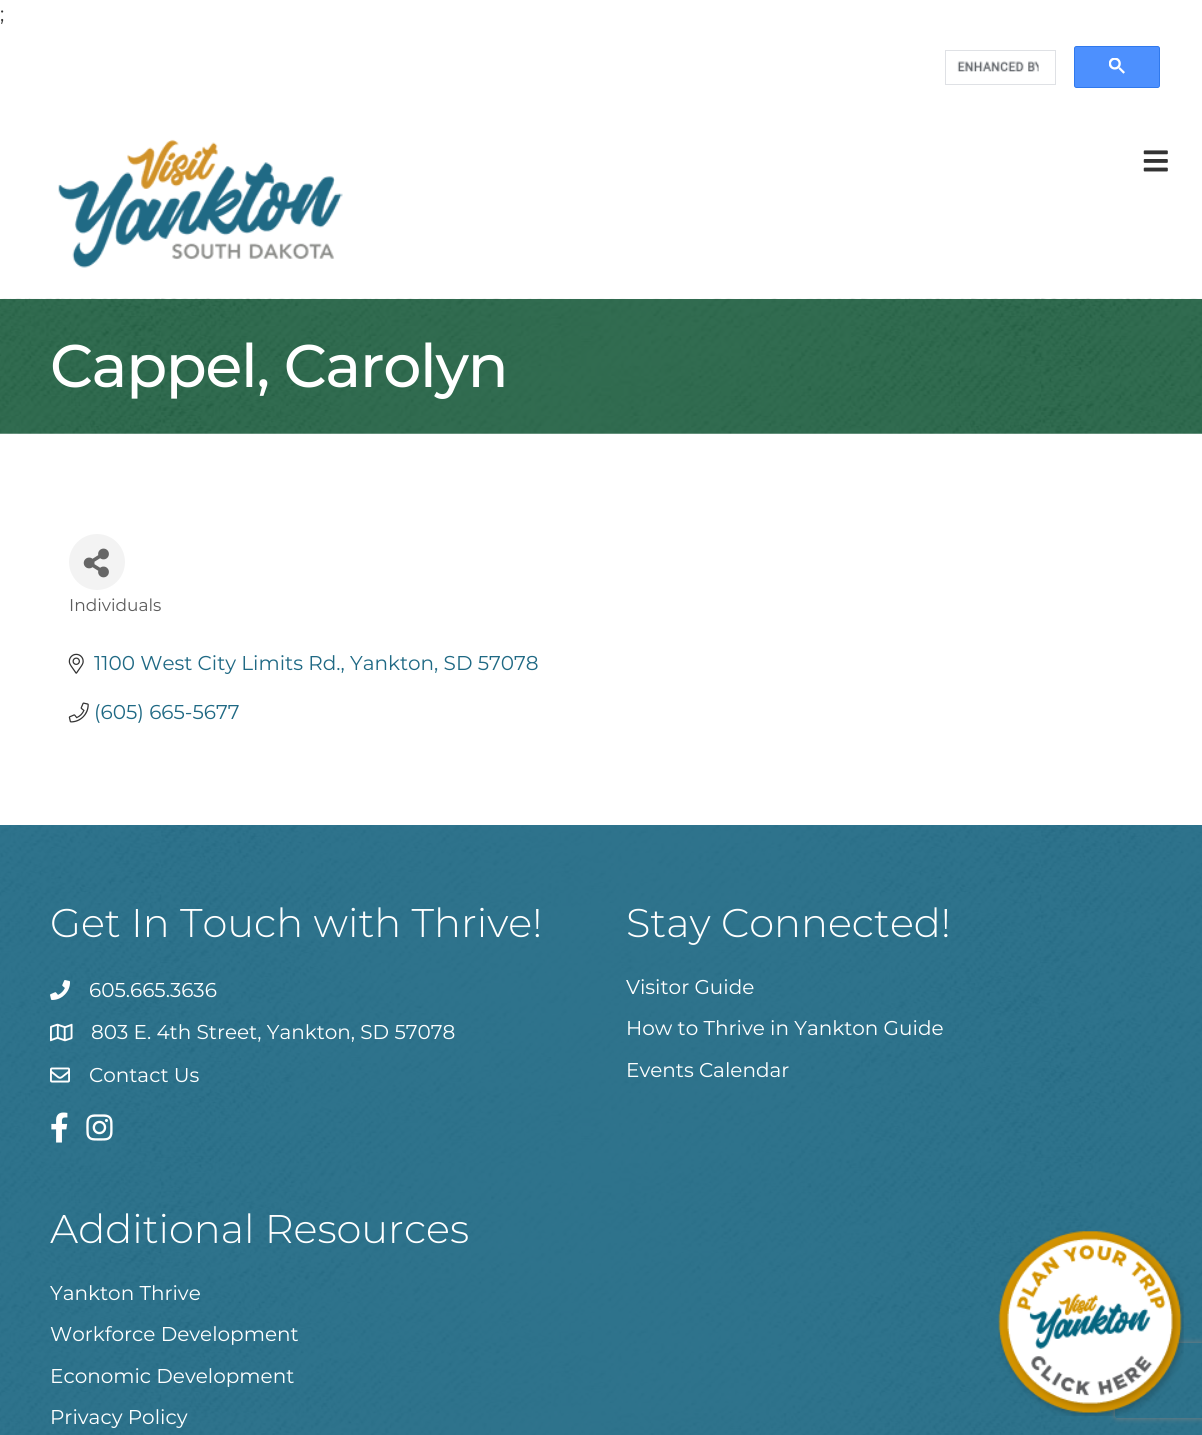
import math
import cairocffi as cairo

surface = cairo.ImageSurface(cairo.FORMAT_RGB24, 1202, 1435)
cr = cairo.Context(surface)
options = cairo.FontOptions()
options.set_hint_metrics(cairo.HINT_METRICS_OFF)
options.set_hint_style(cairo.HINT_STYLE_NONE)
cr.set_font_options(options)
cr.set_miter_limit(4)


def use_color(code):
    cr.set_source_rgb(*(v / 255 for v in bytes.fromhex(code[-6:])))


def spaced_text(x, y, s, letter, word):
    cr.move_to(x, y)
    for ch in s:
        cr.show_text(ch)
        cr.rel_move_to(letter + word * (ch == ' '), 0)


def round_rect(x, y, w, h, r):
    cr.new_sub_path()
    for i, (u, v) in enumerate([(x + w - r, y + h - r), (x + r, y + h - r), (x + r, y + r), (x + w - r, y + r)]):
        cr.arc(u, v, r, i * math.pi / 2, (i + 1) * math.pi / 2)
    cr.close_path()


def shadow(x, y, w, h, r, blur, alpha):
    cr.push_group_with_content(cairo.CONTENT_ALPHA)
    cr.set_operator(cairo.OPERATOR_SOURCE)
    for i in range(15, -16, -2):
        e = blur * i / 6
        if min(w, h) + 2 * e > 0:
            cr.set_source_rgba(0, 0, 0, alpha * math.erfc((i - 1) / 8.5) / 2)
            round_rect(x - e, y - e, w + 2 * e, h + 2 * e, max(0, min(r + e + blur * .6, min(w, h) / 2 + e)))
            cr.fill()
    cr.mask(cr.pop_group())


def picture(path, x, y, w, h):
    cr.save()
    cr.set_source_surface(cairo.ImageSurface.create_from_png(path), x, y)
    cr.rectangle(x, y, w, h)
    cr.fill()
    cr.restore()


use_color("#ffffff")
cr.paint()
cr.select_font_face("Montserrat")
cr.set_font_size(20)
use_color("#333333")
cr.move_to(0, 21)
cr.show_text(";")
cr.rectangle(945.5, 50.5, 110, 34)
use_color("#dfe1e5")
cr.set_line_width(1)
cr.stroke()
picture("img1.png", 957, 61, 82, 11)
use_color("#4d90fe")
round_rect(1074.5, 46.5, 85, 41, 2)
cr.fill_preserve()
use_color("#3079ed")
cr.stroke()
picture("img2.png", 1109, 58, 16, 16)
picture("img3.png", 58, 139, 285, 129)
picture("img4.png", 1143, 150, 25, 22)
picture("img5.png", 0, 298, 1202, 136)
cr.select_font_face("Montserrat Medium")
cr.set_font_size(60)
use_color("#ffffff")
spaced_text(50, 387, "Cappel, Carolyn", -1.25, 0)
use_color("#f3f3f3")
cr.new_path()
cr.arc(97, 562, 28, 0, 2 * math.pi)
cr.fill()
picture("img6.png", 83, 548, 26, 30)
cr.select_font_face("Montserrat")
cr.set_font_size(17)
use_color("#5c5c5c")
cr.move_to(69, 611)
cr.show_text("Individuals")
picture("img7.png", 68, 653, 16, 21)
cr.set_font_size(20)
use_color("#1f6984")
cr.move_to(94, 670)
cr.show_text("1100 West City Limits Rd., Yankton, SD 57078")
picture("img8.png", 68, 702, 21, 21)
cr.move_to(94, 719)
cr.show_text("(605) 665-5677")
picture("img9.png", 0, 825, 1202, 610)
cr.select_font_face("Montserrat Light")
cr.set_font_size(40)
use_color("#ffffff")
cr.move_to(50, 937)
cr.show_text("Get In Touch with Thrive!")
picture("img10.png", 50, 980, 20, 20)
cr.select_font_face("Montserrat")
cr.set_font_size(20)
cr.move_to(89, 997)
cr.show_text("605.665.3636")
picture("img11.png", 50, 1023, 23, 19)
cr.move_to(91, 1039)
cr.show_text("803 E. 4th Street, Yankton, SD 57078")
picture("img12.png", 50, 1067, 20, 16)
cr.move_to(89, 1082)
cr.show_text("Contact Us")
picture("img13.png", 51, 1112, 17, 31)
picture("img14.png", 86, 1114, 27, 27)
cr.select_font_face("Montserrat Light")
cr.set_font_size(40)
cr.move_to(626, 937)
cr.show_text("Stay Connected!")
cr.select_font_face("Montserrat")
cr.set_font_size(20)
cr.move_to(626, 994)
cr.show_text("Visitor Guide")
cr.move_to(626, 1035)
cr.show_text("How to Thrive in Yankton Guide")
cr.move_to(626, 1077)
cr.show_text("Events Calendar")
cr.select_font_face("Montserrat Light")
cr.set_font_size(40)
cr.move_to(50, 1243)
cr.show_text("Additional Resources")
cr.select_font_face("Montserrat")
cr.set_font_size(20)
cr.move_to(50, 1300)
cr.show_text("Yankton Thrive")
cr.move_to(50, 1341)
cr.show_text("Workforce Development")
cr.move_to(50, 1383)
cr.show_text("Economic Development")
cr.move_to(50, 1424)
cr.show_text("Privacy Policy")
cr.save()
cr.set_fill_rule(cairo.FILL_RULE_EVEN_ODD)
cr.new_path()
cr.move_to(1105, 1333)
cr.line_to(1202, 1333)
cr.line_to(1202, 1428)
cr.line_to(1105, 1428)
cr.close_path()
cr.move_to(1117.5, 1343)
cr.line_to(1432.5, 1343)
cr.curve_to(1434, 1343, 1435, 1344, 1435, 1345.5)
cr.line_to(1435, 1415.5)
cr.curve_to(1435, 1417, 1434, 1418, 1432.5, 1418)
cr.line_to(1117.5, 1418)
cr.curve_to(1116, 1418, 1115, 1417, 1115, 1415.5)
cr.line_to(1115, 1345.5)
cr.curve_to(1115, 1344, 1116, 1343, 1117.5, 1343)
cr.close_path()
cr.clip()
use_color("#808080")
shadow(1115, 1343, 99, 75, 2.5, 3, 1)
cr.restore()
picture("img15.png", 998, 1231, 186, 185)
surface.write_to_png("result.png")
